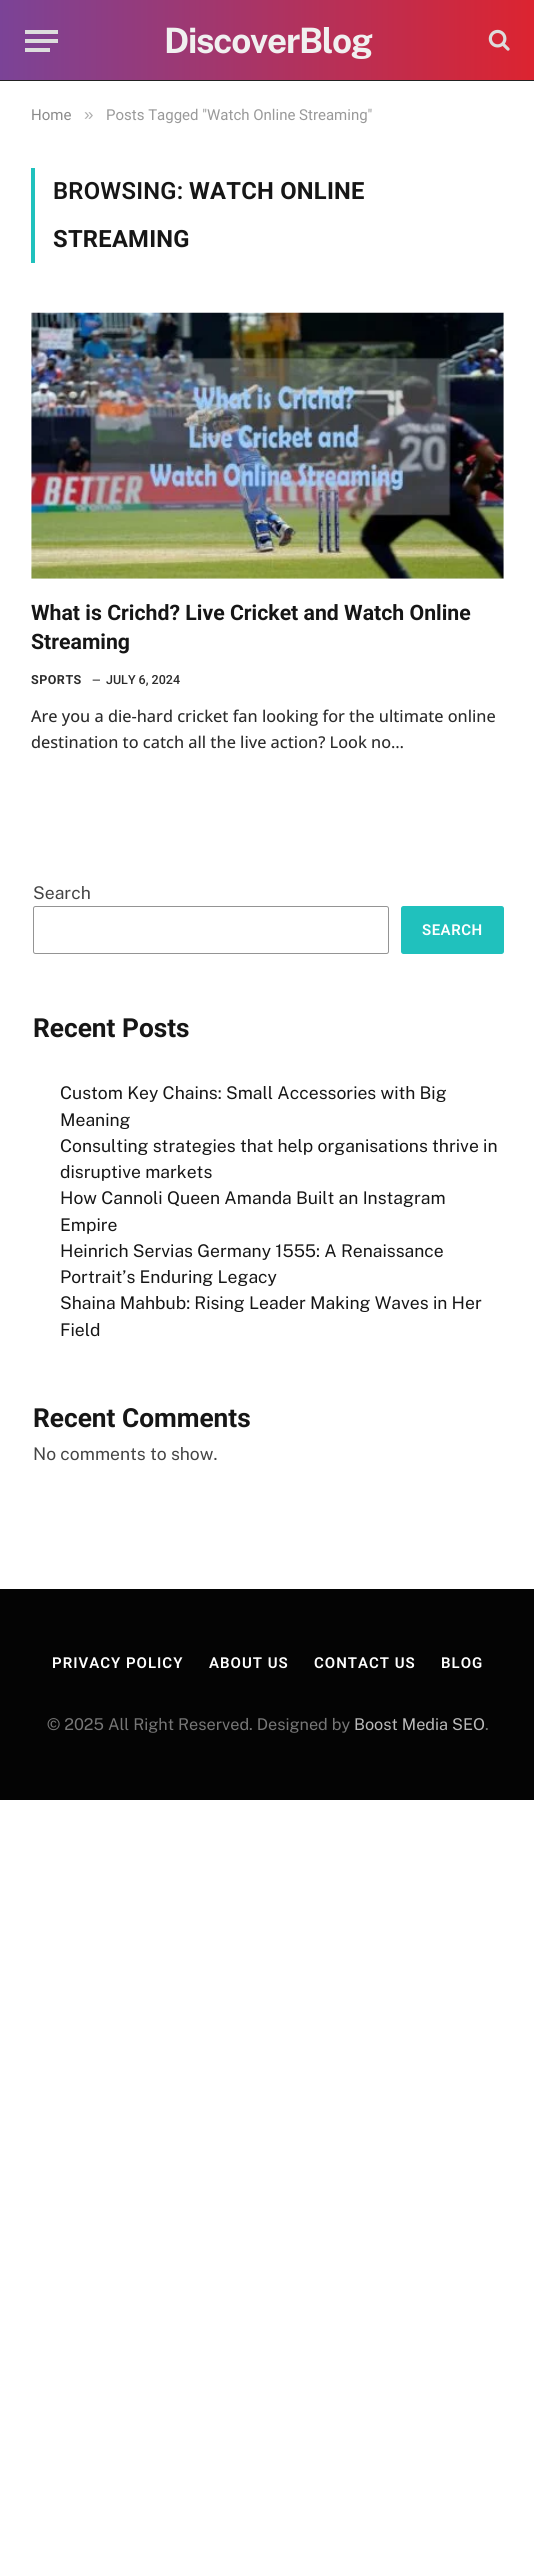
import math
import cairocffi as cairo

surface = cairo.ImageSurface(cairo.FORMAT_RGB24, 534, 2557)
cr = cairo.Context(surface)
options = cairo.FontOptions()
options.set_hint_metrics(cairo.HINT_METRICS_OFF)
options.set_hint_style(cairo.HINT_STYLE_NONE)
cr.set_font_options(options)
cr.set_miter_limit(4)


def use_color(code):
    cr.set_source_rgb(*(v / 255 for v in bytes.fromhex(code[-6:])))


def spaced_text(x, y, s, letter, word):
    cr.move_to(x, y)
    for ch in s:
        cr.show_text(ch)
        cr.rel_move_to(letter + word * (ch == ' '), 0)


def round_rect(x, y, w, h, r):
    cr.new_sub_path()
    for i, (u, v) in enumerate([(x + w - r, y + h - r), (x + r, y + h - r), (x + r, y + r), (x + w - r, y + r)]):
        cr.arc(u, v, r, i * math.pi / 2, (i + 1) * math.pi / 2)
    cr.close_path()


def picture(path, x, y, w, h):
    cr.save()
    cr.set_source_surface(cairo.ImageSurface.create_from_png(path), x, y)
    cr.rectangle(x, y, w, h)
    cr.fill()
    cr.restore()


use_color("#ffffff")
cr.paint()
gradient = cairo.LinearGradient(0, 40, 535, 40)
gradient.add_color_stop_rgba(0, 0.482, 0.263, 0.592, 1)
gradient.add_color_stop_rgba(1, 0.863, 0.141, 0.188, 1)
cr.set_source(gradient)
cr.rectangle(0, 0, 534, 80)
cr.fill()
use_color("#222222")
cr.rectangle(0, 80, 534, 1)
cr.fill()
use_color("#dddddd")
cr.rectangle(25, 48, 25, 4)
cr.fill()
cr.rectangle(25, 30, 33, 4)
cr.fill()
cr.rectangle(25, 39, 33, 4)
cr.fill()
cr.select_font_face("Public Sans", cairo.FONT_SLANT_NORMAL, cairo.FONT_WEIGHT_BOLD)
cr.set_font_size(35)
use_color("#f0f0f0")
spaced_text(164, 53, "DiscoverBlog", -1.25, 0)
picture("img1.png", 488, 29, 22, 22)
cr.select_font_face("Roboto")
cr.set_font_size(15)
use_color("#8a8a8a")
cr.move_to(31, 120)
cr.show_text("Home")
cr.select_font_face("Liberation Sans")
cr.set_font_size(17)
use_color("#adadad")
cr.move_to(84, 120)
cr.show_text("»")
cr.select_font_face("Roboto")
cr.set_font_size(15)
use_color("#999999")
cr.move_to(106, 120)
cr.show_text("Posts Tagged \"Watch Online Streaming\"")
use_color("#20c1bd")
cr.rectangle(31, 168, 4, 95)
cr.fill()
cr.select_font_face("Roboto SemiBold")
cr.set_font_size(23.75)
use_color("#161616")
spaced_text(53, 199, "BROWSING:", 0.25, 0)
cr.select_font_face("Roboto", cairo.FONT_SLANT_NORMAL, cairo.FONT_WEIGHT_BOLD)
spaced_text(189, 199, "WATCH ONLINE", 0.25, 0)
spaced_text(53, 247, "STREAMING", 0.25, 0)
picture("img2.png", 31, 312, 473, 267)
cr.set_font_size(21.25)
cr.move_to(31, 620)
cr.show_text("What is Crichd? Live Cricket and Watch Online")
cr.move_to(31, 649)
cr.show_text("Streaming")
cr.set_font_size(12.5)
use_color("#2b2b2b")
spaced_text(31, 684, "SPORTS", 0.5, 0)
cr.select_font_face("Roboto Medium")
cr.set_font_size(11)
cr.move_to(92, 684)
cr.show_text("—")
cr.set_font_size(12.5)
cr.move_to(106, 684)
cr.show_text("JULY 6, 2024")
cr.select_font_face("Open Sans Medium")
cr.set_font_size(16.25)
cr.move_to(31, 722)
cr.show_text("Are you a die-hard cricket fan looking for the ultimate online")
cr.move_to(31, 748)
cr.show_text("destination to catch all the live action? Look no…")
cr.select_font_face("Public Sans")
cr.set_font_size(17.5)
use_color("#444444")
cr.move_to(33, 899)
cr.show_text("Search")
round_rect(33.5, 906.5, 355, 47, 2)
use_color("#949494")
cr.set_line_width(1)
cr.stroke()
use_color("#20c1bd")
round_rect(401, 906, 103, 48, 2.5)
cr.fill()
cr.select_font_face("Roboto SemiBold")
cr.set_font_size(15)
use_color("#ffffff")
spaced_text(422, 935, "SEARCH", 0.5, 0)
cr.select_font_face("Roboto", cairo.FONT_SLANT_NORMAL, cairo.FONT_WEIGHT_BOLD)
cr.set_font_size(26.25)
use_color("#161616")
cr.move_to(33, 1037)
cr.show_text("Recent Posts")
cr.select_font_face("Public Sans")
cr.set_font_size(17.5)
cr.move_to(60, 1099)
cr.show_text("Custom Key Chains: Small Accessories with Big")
cr.move_to(60, 1126)
cr.show_text("Meaning")
cr.move_to(60, 1152)
cr.show_text("Consulting strategies that help organisations thrive in")
cr.move_to(60, 1178)
cr.show_text("disruptive markets")
cr.move_to(60, 1204)
cr.show_text("How Cannoli Queen Amanda Built an Instagram")
cr.move_to(60, 1231)
cr.show_text("Empire")
cr.move_to(60, 1257)
cr.show_text("Heinrich Servias Germany 1555: A Renaissance")
cr.move_to(60, 1283)
cr.show_text("Portrait’s Enduring Legacy")
cr.move_to(60, 1309)
cr.show_text("Shaina Mahbub: Rising Leader Making Waves in Her")
cr.move_to(60, 1336)
cr.show_text("Field")
cr.select_font_face("Roboto", cairo.FONT_SLANT_NORMAL, cairo.FONT_WEIGHT_BOLD)
cr.set_font_size(26.25)
cr.move_to(33, 1427)
cr.show_text("Recent Comments")
cr.select_font_face("Public Sans")
cr.set_font_size(17.5)
use_color("#444444")
cr.move_to(33, 1460)
cr.show_text("No comments to show.")
use_color("#040404")
cr.rectangle(0, 1589, 534, 211)
cr.fill()
cr.select_font_face("Roboto SemiBold")
cr.set_font_size(15)
use_color("#ffffff")
spaced_text(52, 1668, "PRIVACY POLICY", 1, 0)
spaced_text(209, 1668, "ABOUT US", 1, 0)
spaced_text(314, 1668, "CONTACT US", 1, 0)
spaced_text(441, 1668, "BLOG", 1, 0)
cr.select_font_face("Public Sans")
cr.set_font_size(16.25)
use_color("#777777")
cr.move_to(47, 1730)
cr.show_text("© 2025 All Right Reserved. Designed by")
use_color("#bbbbbb")
cr.move_to(354, 1730)
cr.show_text("Boost Media SEO")
use_color("#777777")
cr.move_to(485, 1730)
cr.show_text(".")
surface.write_to_png("result.png")
